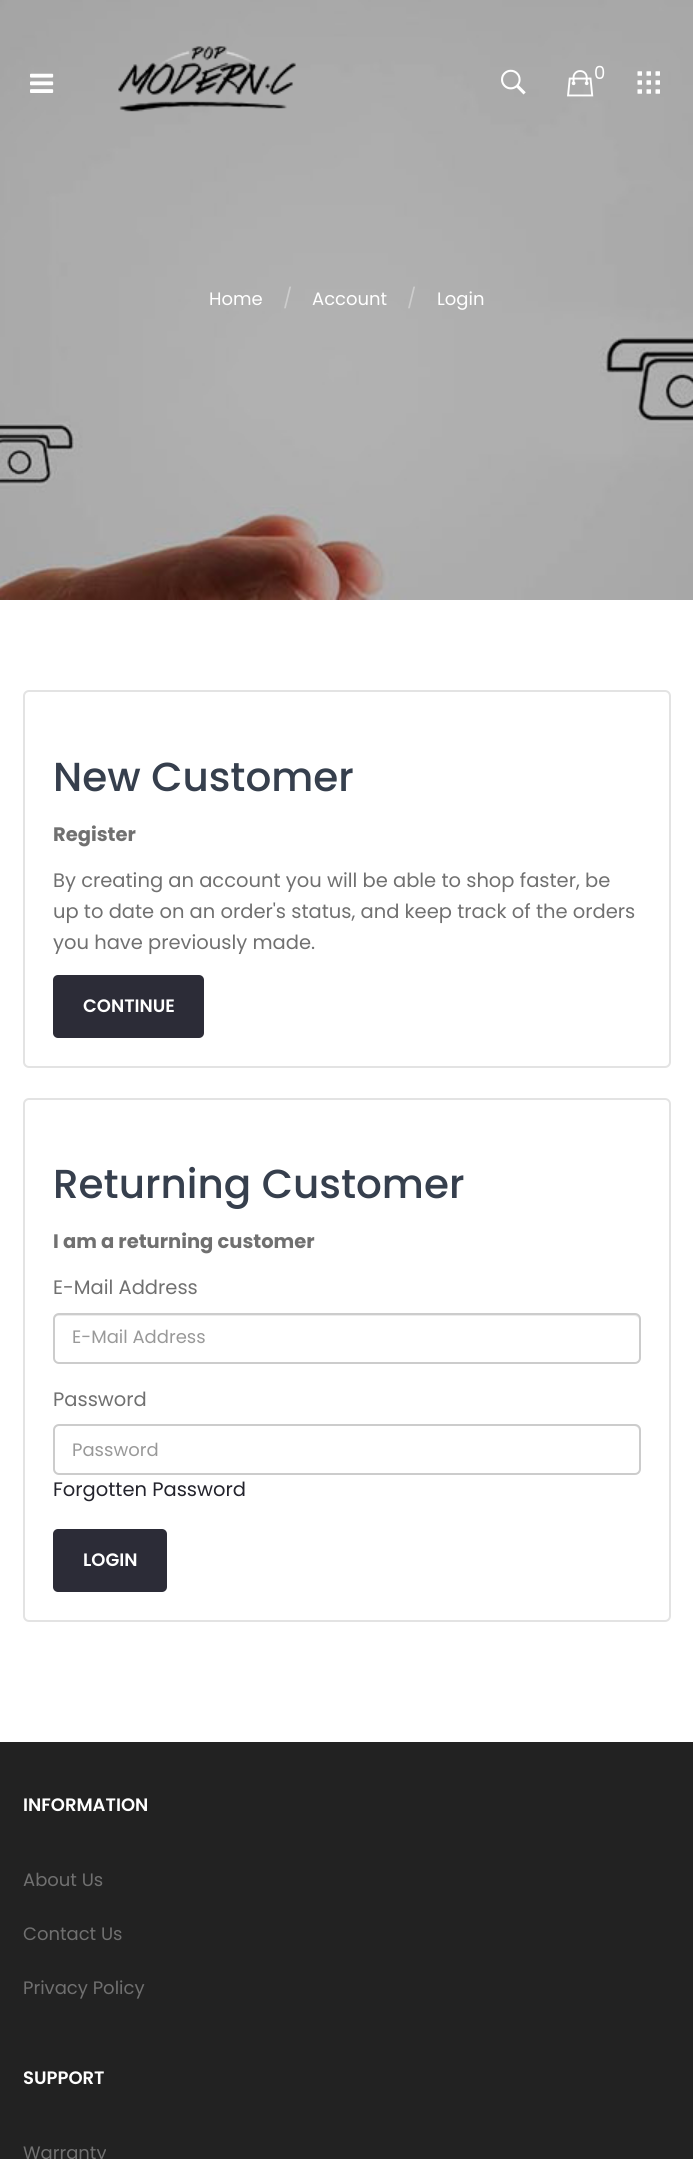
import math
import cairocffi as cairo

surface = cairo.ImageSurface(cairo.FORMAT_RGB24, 693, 2159)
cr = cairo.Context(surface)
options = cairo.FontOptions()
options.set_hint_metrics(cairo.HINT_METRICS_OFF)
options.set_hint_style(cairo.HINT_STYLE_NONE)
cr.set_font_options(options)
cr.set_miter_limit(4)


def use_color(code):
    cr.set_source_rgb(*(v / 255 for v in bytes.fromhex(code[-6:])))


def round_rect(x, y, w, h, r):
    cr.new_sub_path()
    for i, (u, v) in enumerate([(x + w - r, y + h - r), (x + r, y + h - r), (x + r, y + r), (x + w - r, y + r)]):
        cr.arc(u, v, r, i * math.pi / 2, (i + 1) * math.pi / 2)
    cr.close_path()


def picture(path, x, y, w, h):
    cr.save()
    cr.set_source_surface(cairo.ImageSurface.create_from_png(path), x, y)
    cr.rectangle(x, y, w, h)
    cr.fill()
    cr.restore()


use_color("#ffffff")
cr.paint()
picture("img1.png", 0, 0, 693, 600)
picture("img2.png", 30, 73, 24, 20)
picture("img3.png", 118, 46, 178, 66)
picture("img4.png", 501, 69, 25, 26)
picture("img5.png", 567, 70, 27, 27)
cr.select_font_face("Poppins")
cr.set_font_size(18)
use_color("#ffffff")
cr.move_to(594, 79)
cr.show_text("0")
picture("img6.png", 637, 71, 23, 23)
cr.move_to(209, 305)
cr.show_text("Home")
cr.set_font_size(19.5)
use_color("#cccccc")
cr.move_to(283, 305)
cr.show_text("/")
cr.set_font_size(18)
use_color("#ffffff")
cr.move_to(312, 305)
cr.show_text("Account")
cr.set_font_size(19.5)
use_color("#cccccc")
cr.move_to(407, 305)
cr.show_text("/")
cr.set_font_size(18)
use_color("#ffffff")
cr.move_to(437, 305)
cr.show_text("Login")
round_rect(24, 691, 646, 376, 5)
use_color("#e3e3e3")
cr.stroke()
cr.select_font_face("Poppins Medium")
cr.set_font_size(40.5)
use_color("#363f4d")
cr.move_to(53, 791)
cr.show_text("New Customer")
cr.select_font_face("Poppins", cairo.FONT_SLANT_NORMAL, cairo.FONT_WEIGHT_BOLD)
cr.set_font_size(19.5)
use_color("#707070")
cr.move_to(53, 841)
cr.show_text("Register")
cr.select_font_face("Poppins")
cr.move_to(53, 887)
cr.show_text("By creating an account you will be able to shop faster, be")
cr.move_to(53, 918)
cr.show_text("up to date on an order's status, and keep track of the orders")
cr.move_to(53, 949)
cr.show_text("you have previously made.")
use_color("#2c2c37")
round_rect(53, 975, 151, 63, 5)
cr.fill()
cr.select_font_face("Poppins SemiBold")
cr.set_font_size(18)
use_color("#ffffff")
cr.move_to(83, 1012)
cr.show_text("CONTINUE")
round_rect(24, 1099, 646, 522, 5)
use_color("#e3e3e3")
cr.stroke()
cr.select_font_face("Poppins Medium")
cr.set_font_size(40.5)
use_color("#363f4d")
cr.move_to(53, 1198)
cr.show_text("Returning Customer")
cr.select_font_face("Poppins", cairo.FONT_SLANT_NORMAL, cairo.FONT_WEIGHT_BOLD)
cr.set_font_size(19.5)
use_color("#707070")
cr.move_to(53, 1248)
cr.show_text("I am a returning customer")
cr.select_font_face("Poppins")
cr.move_to(53, 1294)
cr.show_text("E-Mail Address")
use_color("#ececec")
cr.new_path()
cr.move_to(58, 1316)
cr.line_to(634, 1316)
cr.curve_to(637, 1316, 639, 1318, 639, 1320)
cr.line_to(639, 1319)
cr.curve_to(639, 1316, 637, 1314, 634, 1314)
cr.line_to(59, 1314)
cr.curve_to(56, 1314, 54, 1316, 54, 1319)
cr.line_to(54, 1320)
cr.curve_to(54, 1318, 56, 1316, 58, 1316)
cr.close_path()
cr.fill()
round_rect(54, 1314, 586, 49, 5)
use_color("#cccccc")
cr.stroke()
cr.set_font_size(18)
use_color("#999999")
cr.move_to(72, 1343)
cr.show_text("E-Mail Address")
cr.set_font_size(19.5)
use_color("#707070")
cr.move_to(53, 1406)
cr.show_text("Password")
use_color("#ececec")
cr.new_path()
cr.move_to(58, 1426)
cr.line_to(634, 1426)
cr.curve_to(637, 1426, 639, 1429, 639, 1431)
cr.line_to(639, 1430)
cr.curve_to(639, 1427, 637, 1425, 634, 1425)
cr.line_to(59, 1425)
cr.curve_to(56, 1425, 54, 1427, 54, 1430)
cr.line_to(54, 1431)
cr.curve_to(54, 1429, 56, 1426, 58, 1426)
cr.close_path()
cr.fill()
round_rect(54, 1425, 586, 49, 5)
use_color("#cccccc")
cr.stroke()
cr.set_font_size(18)
use_color("#999999")
cr.move_to(72, 1456)
cr.show_text("Password")
cr.set_font_size(19.5)
use_color("#23232c")
cr.move_to(53, 1496)
cr.show_text("Forgotten Password")
use_color("#2c2c37")
round_rect(53, 1529, 114, 63, 5)
cr.fill()
cr.select_font_face("Poppins SemiBold")
cr.set_font_size(18)
use_color("#ffffff")
cr.move_to(83, 1566)
cr.show_text("LOGIN")
use_color("#222222")
cr.rectangle(0, 1742, 693, 417)
cr.fill()
use_color("#ffffff")
cr.move_to(23, 1811)
cr.show_text("INFORMATION")
cr.select_font_face("Poppins")
use_color("#707070")
cr.move_to(23, 1886)
cr.show_text("About Us")
cr.move_to(23, 1940)
cr.show_text("Contact Us")
cr.move_to(23, 1994)
cr.show_text("Privacy Policy")
cr.select_font_face("Poppins SemiBold")
use_color("#ffffff")
cr.move_to(23, 2084)
cr.show_text("SUPPORT")
cr.select_font_face("Poppins")
use_color("#707070")
cr.move_to(23, 2159)
cr.show_text("Warranty")
surface.write_to_png("result.png")
